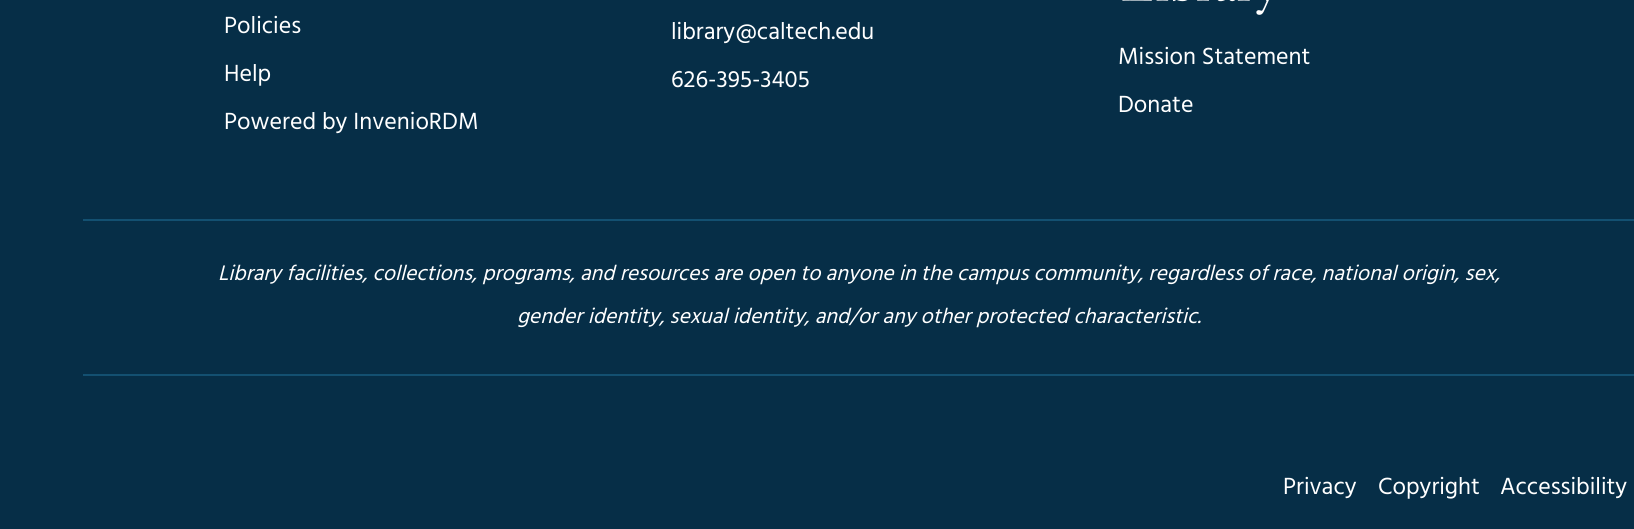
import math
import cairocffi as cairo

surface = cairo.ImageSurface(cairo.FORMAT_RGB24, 1634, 529)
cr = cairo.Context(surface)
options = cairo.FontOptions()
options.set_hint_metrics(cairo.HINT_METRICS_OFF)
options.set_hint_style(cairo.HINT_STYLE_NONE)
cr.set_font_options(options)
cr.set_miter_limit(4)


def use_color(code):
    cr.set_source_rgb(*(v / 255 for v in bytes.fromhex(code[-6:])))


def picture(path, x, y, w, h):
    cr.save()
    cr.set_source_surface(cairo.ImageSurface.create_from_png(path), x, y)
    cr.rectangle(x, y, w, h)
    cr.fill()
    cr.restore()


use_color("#ffffff")
cr.paint()
use_color("#062e47")
cr.new_path()
cr.move_to(0, -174)
cr.line_to(1144, -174)
cr.curve_to(1415, -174, 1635, -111, 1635, -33)
cr.line_to(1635, 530)
cr.line_to(0, 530)
cr.close_path()
cr.fill()
cr.select_font_face("Hind")
cr.set_font_size(24)
use_color("#ffffff")
cr.move_to(224, 33)
cr.show_text("Policies")
cr.move_to(224, 81)
cr.show_text("Help")
cr.move_to(224, 129)
cr.show_text("Powered by InvenioRDM")
cr.move_to(671, 39)
cr.show_text("library@caltech.edu")
cr.move_to(671, 87)
cr.show_text("626-395-3405")
picture("img1.png", 1122, 0, 147, 15)
cr.move_to(1118, 64)
cr.show_text("Mission Statement")
cr.move_to(1118, 112)
cr.show_text("Donate")
use_color("#135071")
cr.rectangle(83, 219, 1551, 2)
cr.fill()
cr.rectangle(83, 374, 1551, 2)
cr.fill()
cr.select_font_face("Hind", cairo.FONT_SLANT_ITALIC)
cr.set_font_size(21.6)
use_color("#ffffff")
cr.move_to(218, 280)
cr.show_text("Library facilities, collections, programs, and resources are open to anyone in the campus community, regardless of race, national origin, sex,")
cr.move_to(517, 323)
cr.show_text("gender identity, sexual identity, and/or any other protected characteristic.")
cr.select_font_face("Hind")
cr.set_font_size(24)
cr.move_to(1283, 494)
cr.show_text("Privacy")
cr.move_to(1378, 494)
cr.show_text("Copyright")
cr.move_to(1500, 494)
cr.show_text("Accessibility")
surface.write_to_png("result.png")
